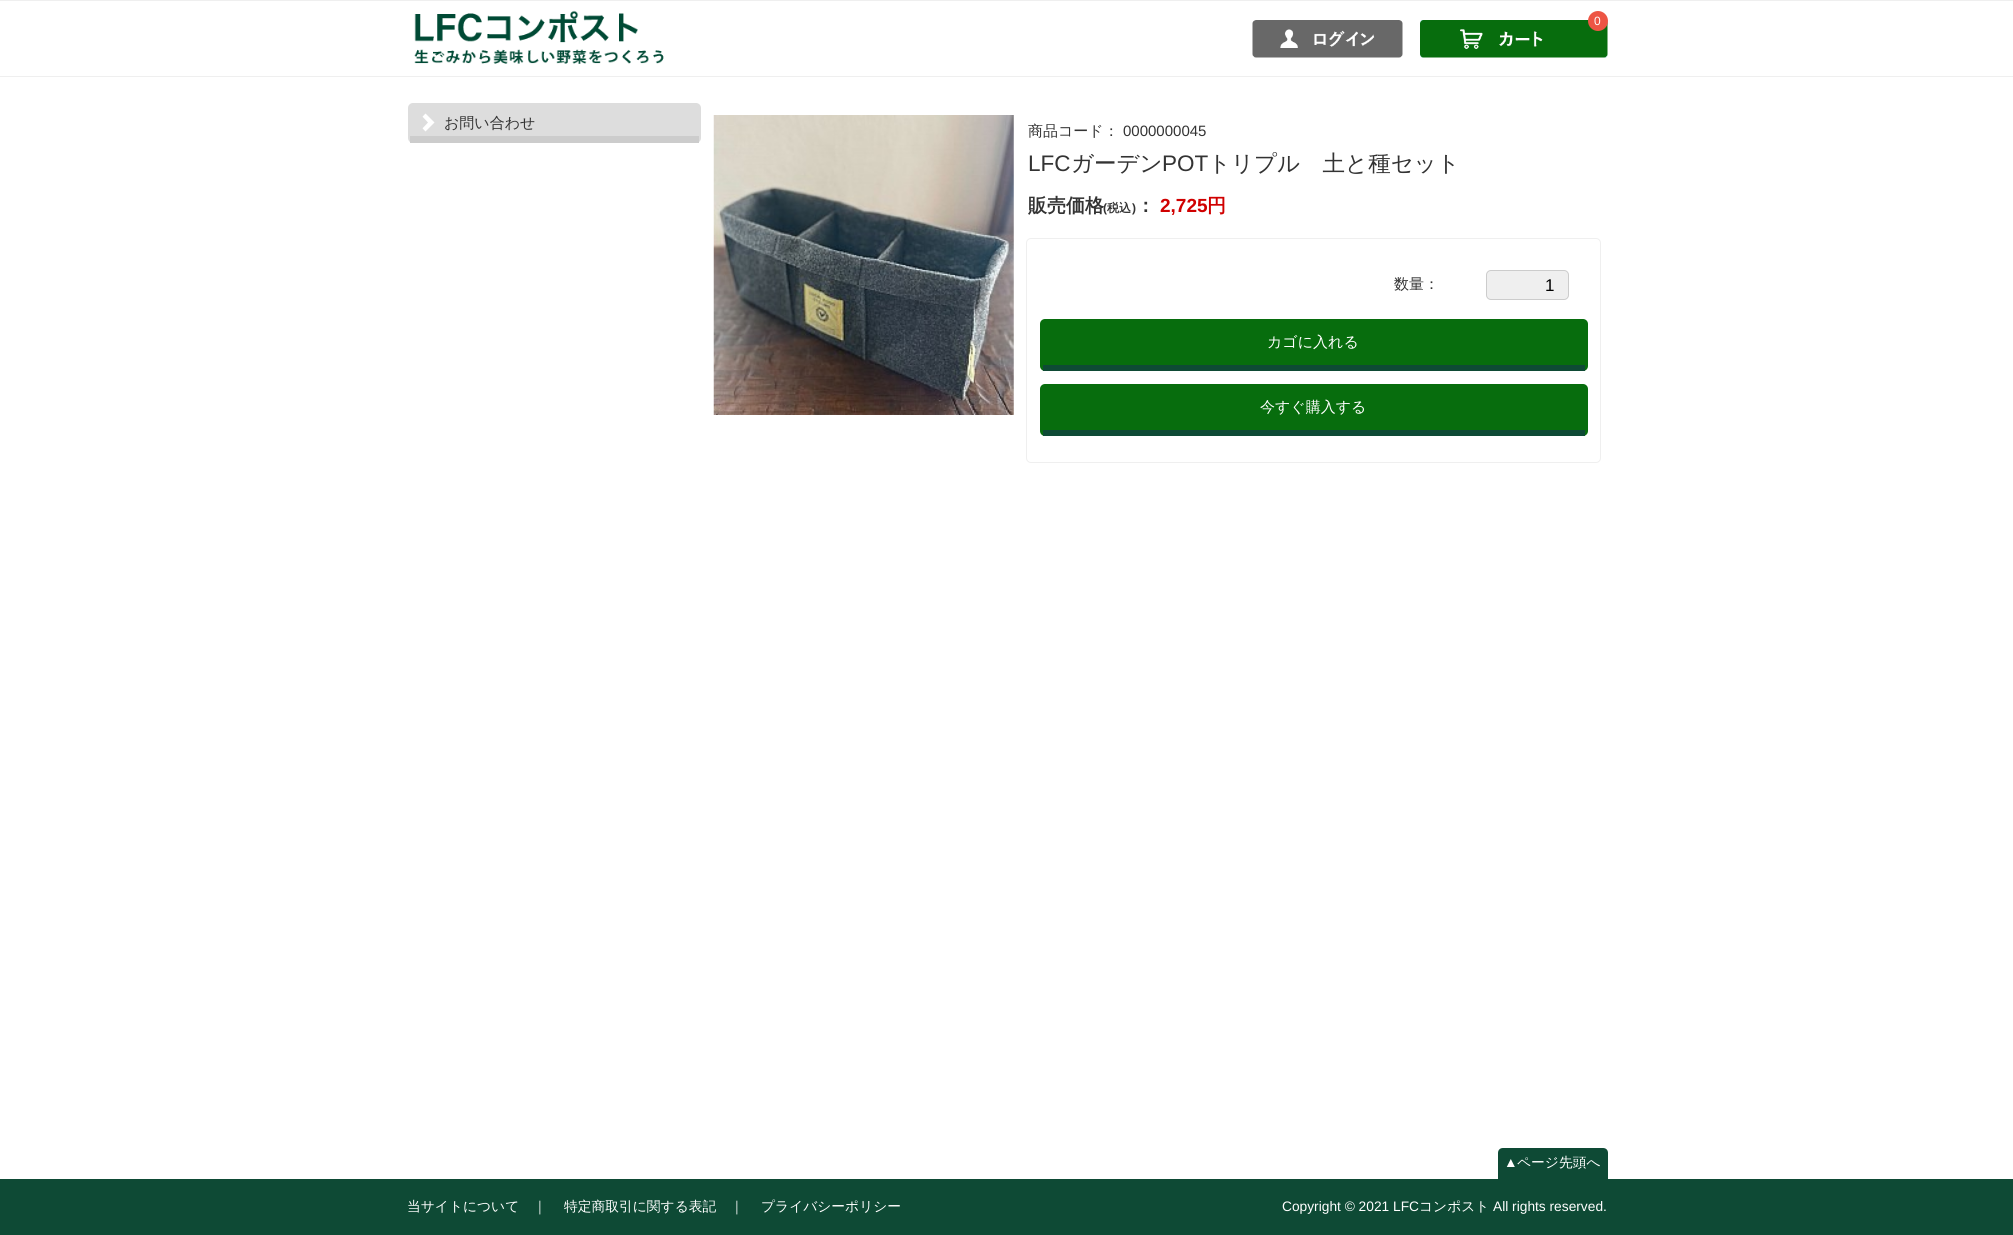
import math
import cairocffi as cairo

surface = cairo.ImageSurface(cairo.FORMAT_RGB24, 2013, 1235)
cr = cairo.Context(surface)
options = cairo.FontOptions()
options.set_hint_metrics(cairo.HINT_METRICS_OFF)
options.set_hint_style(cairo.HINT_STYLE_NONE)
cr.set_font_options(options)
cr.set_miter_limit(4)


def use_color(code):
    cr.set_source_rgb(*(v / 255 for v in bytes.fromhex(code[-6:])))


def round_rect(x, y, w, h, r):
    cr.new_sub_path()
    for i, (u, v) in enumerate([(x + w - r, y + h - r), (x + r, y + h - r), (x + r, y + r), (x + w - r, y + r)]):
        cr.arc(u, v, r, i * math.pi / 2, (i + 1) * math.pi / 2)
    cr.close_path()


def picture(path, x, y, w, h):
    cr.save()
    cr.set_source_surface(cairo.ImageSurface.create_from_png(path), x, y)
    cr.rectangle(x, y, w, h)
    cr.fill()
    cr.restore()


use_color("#ffffff")
cr.paint()
use_color("#efefef")
cr.rectangle(0, 0, 2013, 1)
cr.fill()
cr.rectangle(0, 76, 2013, 1)
cr.fill()
picture("img1.png", 414, 10, 250, 54)
picture("img2.png", 1252, 20, 151, 38)
picture("img3.png", 1420, 20, 188, 38)
use_color("#ed5544")
cr.arc(1598, 21, 10, 0, 2 * math.pi)
cr.fill()
cr.select_font_face("Liberation Sans")
cr.set_font_size(12)
use_color("#ffffff")
cr.move_to(1594, 25)
cr.show_text("0")
use_color("#dddddd")
round_rect(408, 103, 293, 40, 5)
cr.fill()
use_color("#cccccc")
cr.rectangle(410, 136, 289, 7)
cr.fill()
use_color("#ffffff")
cr.new_path()
cr.move_to(425.5, 113.5)
cr.line_to(434.5, 122.5)
cr.line_to(425.5, 131.5)
cr.line_to(417, 122.5)
cr.close_path()
cr.fill()
use_color("#dddddd")
cr.new_path()
cr.move_to(419.5, 113.5)
cr.line_to(428, 122.5)
cr.line_to(419.5, 131.5)
cr.line_to(410.5, 122.5)
cr.close_path()
cr.fill()
cr.select_font_face("WenQuanYi Zen Hei Medium")
cr.set_font_size(15)
use_color("#333333")
cr.move_to(444, 128)
cr.show_text("お問い合わせ")
picture("img4.png", 713, 115, 301, 300)
cr.move_to(1028, 136)
cr.show_text("商品コード：")
cr.select_font_face("Liberation Sans")
cr.move_to(1123, 136)
cr.show_text("0000000045")
cr.set_font_size(22.5)
cr.move_to(1028, 171)
cr.show_text("LFC")
cr.select_font_face("WenQuanYi Zen Hei Medium")
cr.move_to(1071, 171)
cr.show_text("ガーデン")
cr.select_font_face("Liberation Sans")
cr.move_to(1162, 171)
cr.show_text("POT")
cr.select_font_face("WenQuanYi Zen Hei Medium")
cr.move_to(1208, 171)
cr.show_text("トリプル　土と種セット")
cr.select_font_face("WenQuanYi Zen Hei", cairo.FONT_SLANT_NORMAL, cairo.FONT_WEIGHT_BOLD)
cr.set_font_size(19)
cr.move_to(1028, 212)
cr.show_text("販売価格")
cr.select_font_face("Liberation Sans", cairo.FONT_SLANT_NORMAL, cairo.FONT_WEIGHT_BOLD)
cr.set_font_size(12)
cr.move_to(1103, 212)
cr.show_text("(")
cr.select_font_face("WenQuanYi Zen Hei", cairo.FONT_SLANT_NORMAL, cairo.FONT_WEIGHT_BOLD)
cr.move_to(1107, 212)
cr.show_text("税込")
cr.select_font_face("Liberation Sans", cairo.FONT_SLANT_NORMAL, cairo.FONT_WEIGHT_BOLD)
cr.move_to(1132, 212)
cr.show_text(")")
cr.select_font_face("WenQuanYi Zen Hei", cairo.FONT_SLANT_NORMAL, cairo.FONT_WEIGHT_BOLD)
cr.set_font_size(19)
cr.move_to(1136, 212)
cr.show_text("：")
cr.select_font_face("Liberation Sans", cairo.FONT_SLANT_NORMAL, cairo.FONT_WEIGHT_BOLD)
use_color("#d00000")
cr.move_to(1160, 212)
cr.show_text("2,725")
cr.select_font_face("WenQuanYi Zen Hei", cairo.FONT_SLANT_NORMAL, cairo.FONT_WEIGHT_BOLD)
cr.move_to(1207, 212)
cr.show_text("円")
round_rect(1026.5, 238.5, 574, 224, 4.5)
use_color("#efefef")
cr.set_line_width(1)
cr.stroke()
cr.select_font_face("WenQuanYi Zen Hei Medium")
cr.set_font_size(15)
use_color("#333333")
cr.move_to(1394, 289)
cr.show_text("数量：")
use_color("#efefef")
round_rect(1486.5, 270.5, 82, 29, 4.5)
cr.fill_preserve()
use_color("#cccccc")
cr.stroke()
cr.select_font_face("Liberation Sans")
cr.set_font_size(17)
use_color("#000000")
cr.move_to(1545, 291)
cr.show_text("1")
use_color("#076d0d")
round_rect(1040, 319, 548, 52, 5)
cr.fill()
use_color("#0e4a35")
cr.rectangle(1043, 365, 542, 6)
cr.fill()
cr.select_font_face("WenQuanYi Zen Hei Medium")
cr.set_font_size(15)
use_color("#ffffff")
cr.move_to(1267, 347)
cr.show_text("カゴに入れる")
use_color("#076d0d")
round_rect(1040, 384, 548, 52, 5)
cr.fill()
use_color("#0e4a35")
cr.rectangle(1043, 430, 542, 6)
cr.fill()
use_color("#ffffff")
cr.move_to(1260, 412)
cr.show_text("今すぐ購入する")
use_color("#0e4a35")
cr.new_path()
cr.move_to(1503, 1148)
cr.line_to(1603, 1148)
cr.curve_to(1606, 1148, 1608, 1150, 1608, 1153)
cr.line_to(1608, 1179)
cr.line_to(1498, 1179)
cr.line_to(1498, 1153)
cr.curve_to(1498, 1150, 1500, 1148, 1503, 1148)
cr.close_path()
cr.fill()
cr.select_font_face("Liberation Sans")
cr.set_font_size(13.75)
use_color("#ffffff")
cr.move_to(1504, 1167)
cr.show_text("▲")
cr.select_font_face("WenQuanYi Zen Hei Medium")
cr.move_to(1517, 1167)
cr.show_text("ページ先頭へ")
use_color("#0e4a35")
cr.rectangle(0, 1179, 2013, 56)
cr.fill()
use_color("#ffffff")
cr.move_to(407, 1211)
cr.show_text("当サイトについて")
cr.move_to(533, 1211)
cr.show_text("｜")
cr.move_to(564, 1211)
cr.show_text("特定商取引に関する表記")
cr.move_to(730, 1211)
cr.show_text("｜")
cr.move_to(761, 1211)
cr.show_text("プライバシーポリシー")
cr.select_font_face("Liberation Sans")
cr.move_to(1282, 1211)
cr.show_text("Copyright © 2021 LFC")
cr.select_font_face("WenQuanYi Zen Hei Medium")
cr.move_to(1419, 1211)
cr.show_text("コンポスト")
cr.select_font_face("Liberation Sans")
cr.move_to(1493, 1211)
cr.show_text("All rights reserved.")
surface.write_to_png("result.png")
